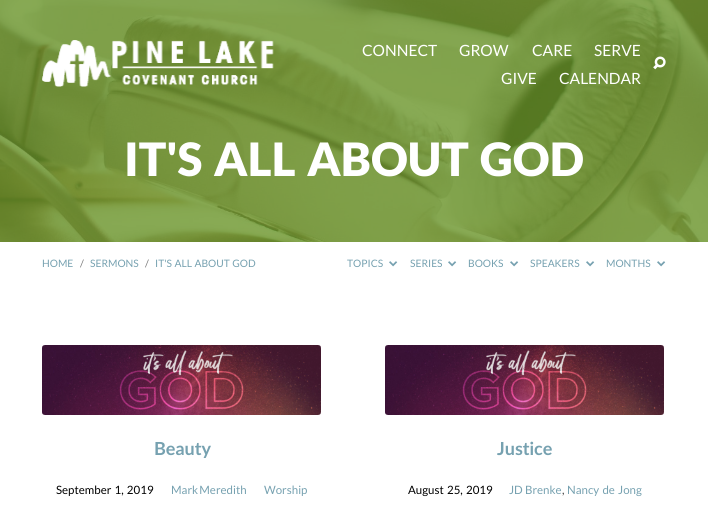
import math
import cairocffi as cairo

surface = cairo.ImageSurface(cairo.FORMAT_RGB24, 708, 506)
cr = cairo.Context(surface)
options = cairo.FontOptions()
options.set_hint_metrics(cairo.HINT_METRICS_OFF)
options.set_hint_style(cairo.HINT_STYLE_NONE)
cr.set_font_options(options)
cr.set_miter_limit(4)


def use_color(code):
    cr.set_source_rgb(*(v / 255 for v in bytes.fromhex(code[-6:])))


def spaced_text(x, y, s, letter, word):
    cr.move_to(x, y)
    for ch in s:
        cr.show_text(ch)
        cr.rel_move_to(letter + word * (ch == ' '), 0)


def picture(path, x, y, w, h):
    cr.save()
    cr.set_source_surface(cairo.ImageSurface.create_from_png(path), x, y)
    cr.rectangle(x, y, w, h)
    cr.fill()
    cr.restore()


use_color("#ffffff")
cr.paint()
use_color("#6a9529")
cr.rectangle(0, 0, 708, 242)
cr.fill()
picture("img3.png", 0, 0, 708, 242)
picture("img1.png", 42, 40, 232, 47)
cr.select_font_face("Lato")
cr.set_font_size(15.5)
use_color("#ffffff")
cr.move_to(362, 56)
cr.show_text("CONNECT")
cr.move_to(459, 56)
cr.show_text("GROW")
cr.move_to(532, 56)
cr.show_text("CARE")
cr.move_to(594, 56)
cr.show_text("SERVE")
cr.move_to(501, 84)
cr.show_text("GIVE")
cr.move_to(559, 84)
cr.show_text("CALENDAR")
picture("img2.png", 653, 56, 13, 14)
cr.select_font_face("Lato Black")
cr.set_font_size(46)
spaced_text(124, 176, "IT'S ALL ABOUT GOD", 0, 2.5)
cr.select_font_face("Lato")
cr.set_font_size(10.25)
use_color("#76a1b0")
cr.move_to(42, 267)
cr.show_text("HOME")
use_color("#777777")
cr.move_to(80, 267)
cr.show_text("/")
use_color("#76a1b0")
cr.move_to(90, 267)
cr.show_text("SERMONS")
use_color("#777777")
cr.move_to(145, 267)
cr.show_text("/")
use_color("#76a1b0")
spaced_text(155, 267, "IT'S ALL ABOUT GOD", 0, 0.5)
cr.move_to(347, 267)
cr.show_text("TOPICS")
picture("img4.png", 389, 261, 9, 6)
cr.move_to(410, 267)
cr.show_text("SERIES")
picture("img4.png", 448, 261, 9, 6)
cr.move_to(468, 267)
cr.show_text("BOOKS")
picture("img4.png", 510, 261, 9, 6)
cr.move_to(530, 267)
cr.show_text("SPEAKERS")
picture("img4.png", 586, 261, 9, 6)
cr.move_to(606, 267)
cr.show_text("MONTHS")
picture("img4.png", 657, 261, 9, 6)
picture("img5.png", 42, 345, 279, 70)
cr.select_font_face("Lato", cairo.FONT_SLANT_NORMAL, cairo.FONT_WEIGHT_BOLD)
cr.set_font_size(18)
cr.move_to(154, 455)
cr.show_text("Beauty")
cr.select_font_face("Lato")
cr.set_font_size(11.5)
use_color("#000000")
spaced_text(56, 494, "September 1, 2019", 0, 1)
use_color("#76a1b0")
spaced_text(171, 494, "Mark Meredith", 0, -1)
cr.move_to(264, 494)
cr.show_text("Worship")
picture("img6.png", 385, 345, 279, 70)
cr.select_font_face("Lato", cairo.FONT_SLANT_NORMAL, cairo.FONT_WEIGHT_BOLD)
cr.set_font_size(18)
cr.move_to(497, 455)
cr.show_text("Justice")
cr.select_font_face("Lato")
cr.set_font_size(11.5)
use_color("#000000")
spaced_text(408, 494, "August 25, 2019", 0, 1)
use_color("#76a1b0")
cr.move_to(509, 494)
cr.show_text("JD Brenke")
use_color("#444444")
cr.move_to(562, 494)
cr.show_text(",")
use_color("#76a1b0")
spaced_text(567, 494, "Nancy de Jong", 0, 1)
surface.write_to_png("result.png")
